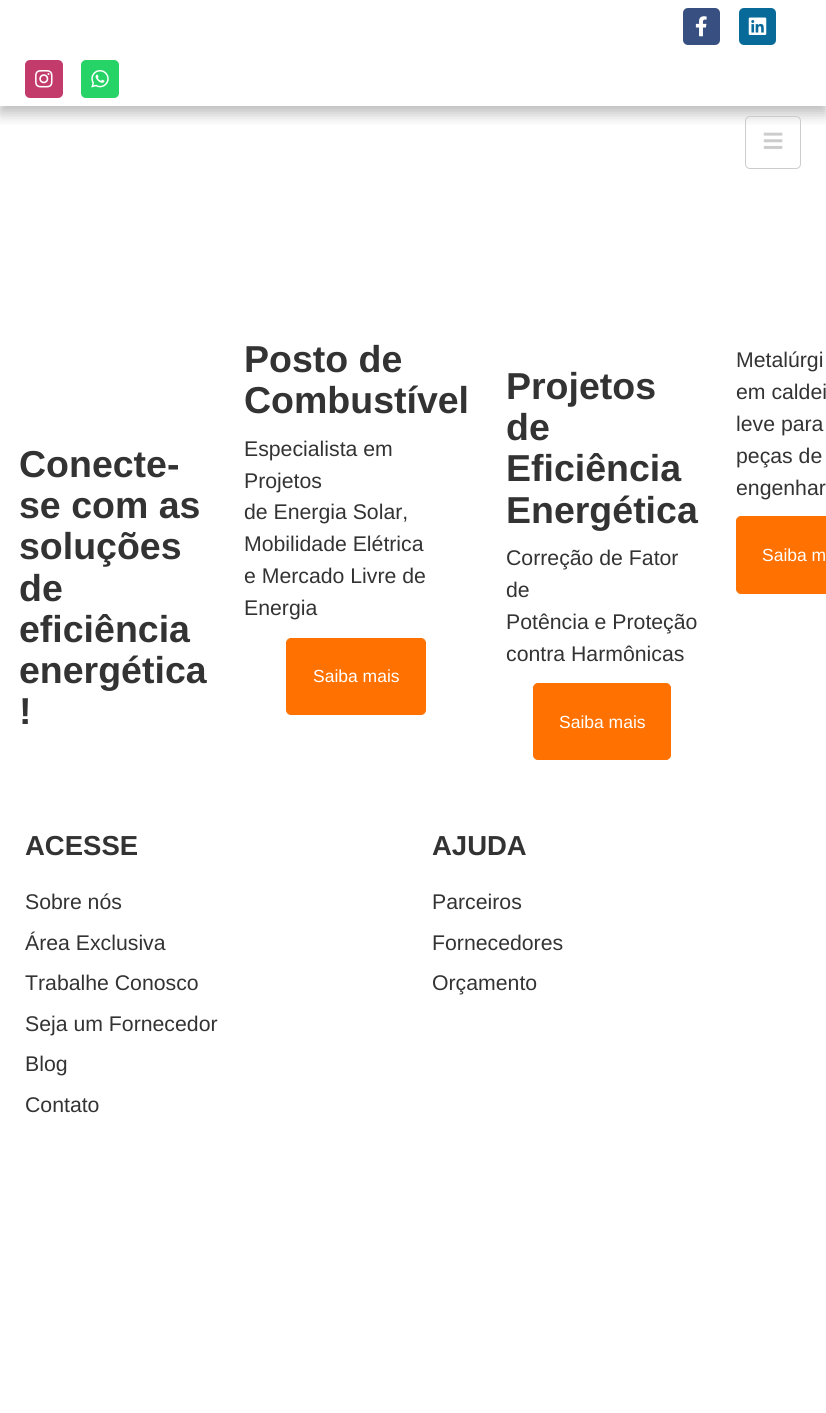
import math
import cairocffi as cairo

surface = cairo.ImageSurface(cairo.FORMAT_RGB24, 826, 1413)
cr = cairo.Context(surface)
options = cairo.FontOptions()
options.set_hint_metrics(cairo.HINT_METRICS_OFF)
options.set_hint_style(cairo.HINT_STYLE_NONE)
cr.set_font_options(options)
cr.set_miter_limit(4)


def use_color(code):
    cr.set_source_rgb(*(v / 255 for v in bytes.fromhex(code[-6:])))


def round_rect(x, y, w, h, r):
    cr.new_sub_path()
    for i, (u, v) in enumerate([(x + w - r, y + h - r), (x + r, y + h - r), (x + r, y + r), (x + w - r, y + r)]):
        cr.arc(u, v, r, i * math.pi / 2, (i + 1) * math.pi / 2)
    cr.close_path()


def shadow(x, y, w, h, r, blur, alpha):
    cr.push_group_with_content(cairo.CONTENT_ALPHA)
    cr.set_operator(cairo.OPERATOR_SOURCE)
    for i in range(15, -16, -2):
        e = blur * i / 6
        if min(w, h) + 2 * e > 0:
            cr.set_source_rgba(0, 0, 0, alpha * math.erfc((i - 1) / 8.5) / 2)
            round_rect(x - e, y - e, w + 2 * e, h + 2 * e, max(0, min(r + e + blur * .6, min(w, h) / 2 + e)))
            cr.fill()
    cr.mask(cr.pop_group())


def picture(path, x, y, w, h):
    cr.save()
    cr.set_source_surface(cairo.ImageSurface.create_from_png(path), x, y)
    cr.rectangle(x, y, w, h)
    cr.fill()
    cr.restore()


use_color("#ffffff")
cr.paint()
cr.save()
cr.rectangle(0, 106, 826, 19)
cr.clip()
use_color("#323232")
shadow(0, 6, 826, 107, 0, 7.5, 0.35)
cr.restore()
use_color("#374f81")
round_rect(683, 8, 37, 37, 5)
cr.fill()
picture("img1.png", 695, 16, 12, 21)
use_color("#076a99")
round_rect(739, 8, 37, 37, 5)
cr.fill()
picture("img2.png", 748, 17, 19, 18)
use_color("#c23b6a")
round_rect(25, 60, 38, 38, 5)
cr.fill()
picture("img3.png", 35, 70, 18, 18)
use_color("#25d366")
round_rect(81, 60, 38, 38, 5)
cr.fill()
picture("img4.png", 91, 70, 18, 18)
round_rect(745.5, 116.5, 55, 52, 4.5)
use_color("#cccccc")
cr.set_line_width(1)
cr.stroke()
picture("img5.png", 763, 132, 20, 17)
cr.select_font_face("Liberation Sans", cairo.FONT_SLANT_NORMAL, cairo.FONT_WEIGHT_BOLD)
cr.set_font_size(37.5)
use_color("#333333")
cr.move_to(19, 477)
cr.show_text("Conecte-")
cr.move_to(19, 518)
cr.show_text("se com as")
cr.move_to(19, 559)
cr.show_text("soluções")
cr.move_to(19, 601)
cr.show_text("de")
cr.move_to(19, 642)
cr.show_text("eficiência")
cr.move_to(19, 683)
cr.show_text("energética")
cr.move_to(19, 724)
cr.show_text("!")
cr.move_to(244, 372)
cr.show_text("Posto de")
cr.move_to(244, 413)
cr.show_text("Combustível")
cr.select_font_face("Liberation Sans")
cr.set_font_size(21.25)
cr.move_to(244, 456)
cr.show_text("Especialista em")
cr.move_to(244, 488)
cr.show_text("Projetos")
cr.move_to(244, 519)
cr.show_text("de Energia Solar,")
cr.move_to(244, 551)
cr.show_text("Mobilidade Elétrica")
cr.move_to(244, 583)
cr.show_text("e Mercado Livre de")
cr.move_to(244, 615)
cr.show_text("Energia")
use_color("#ff7100")
round_rect(286.5, 638.5, 139, 76, 4.5)
cr.fill_preserve()
cr.stroke()
cr.set_font_size(17.5)
use_color("#ffffff")
cr.move_to(313, 682)
cr.show_text("Saiba mais")
cr.select_font_face("Liberation Sans", cairo.FONT_SLANT_NORMAL, cairo.FONT_WEIGHT_BOLD)
cr.set_font_size(37.5)
use_color("#333333")
cr.move_to(506, 399)
cr.show_text("Projetos")
cr.move_to(506, 440)
cr.show_text("de")
cr.move_to(506, 481)
cr.show_text("Eficiência")
cr.move_to(506, 523)
cr.show_text("Energética")
cr.select_font_face("Liberation Sans")
cr.set_font_size(21.25)
cr.move_to(506, 565)
cr.show_text("Correção de Fator")
cr.move_to(506, 597)
cr.show_text("de")
cr.move_to(506, 629)
cr.show_text("Potência e Proteção")
cr.move_to(506, 661)
cr.show_text("contra Harmônicas")
use_color("#ff7100")
round_rect(533.5, 683.5, 137, 76, 4.5)
cr.fill_preserve()
cr.stroke()
cr.set_font_size(17.5)
use_color("#ffffff")
cr.move_to(559, 728)
cr.show_text("Saiba mais")
cr.set_font_size(21.25)
use_color("#333333")
cr.move_to(736, 367)
cr.show_text("Metalúrgi")
cr.move_to(736, 399)
cr.show_text("em caldei")
cr.move_to(736, 431)
cr.show_text("leve para")
cr.move_to(736, 463)
cr.show_text("peças de")
cr.move_to(736, 495)
cr.show_text("engenhar")
use_color("#ff7100")
round_rect(736.5, 516.5, 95, 77, 4.5)
cr.fill_preserve()
cr.stroke()
cr.set_font_size(17.5)
use_color("#ffffff")
cr.move_to(762, 561)
cr.show_text("Saiba m")
cr.select_font_face("Liberation Sans", cairo.FONT_SLANT_NORMAL, cairo.FONT_WEIGHT_BOLD)
cr.set_font_size(27.5)
use_color("#333333")
cr.move_to(25, 855)
cr.show_text("ACESSE")
cr.select_font_face("Liberation Sans")
cr.set_font_size(21.25)
cr.move_to(25, 909)
cr.show_text("Sobre nós")
cr.move_to(25, 950)
cr.show_text("Área Exclusiva")
cr.move_to(25, 990)
cr.show_text("Trabalhe Conosco")
cr.move_to(25, 1031)
cr.show_text("Seja um Fornecedor")
cr.move_to(25, 1071)
cr.show_text("Blog")
cr.move_to(25, 1112)
cr.show_text("Contato")
cr.select_font_face("Liberation Sans", cairo.FONT_SLANT_NORMAL, cairo.FONT_WEIGHT_BOLD)
cr.set_font_size(27.5)
cr.move_to(432, 855)
cr.show_text("AJUDA")
cr.select_font_face("Liberation Sans")
cr.set_font_size(21.25)
cr.move_to(432, 909)
cr.show_text("Parceiros")
cr.move_to(432, 950)
cr.show_text("Fornecedores")
cr.move_to(432, 990)
cr.show_text("Orçamento")
surface.write_to_png("result.png")
